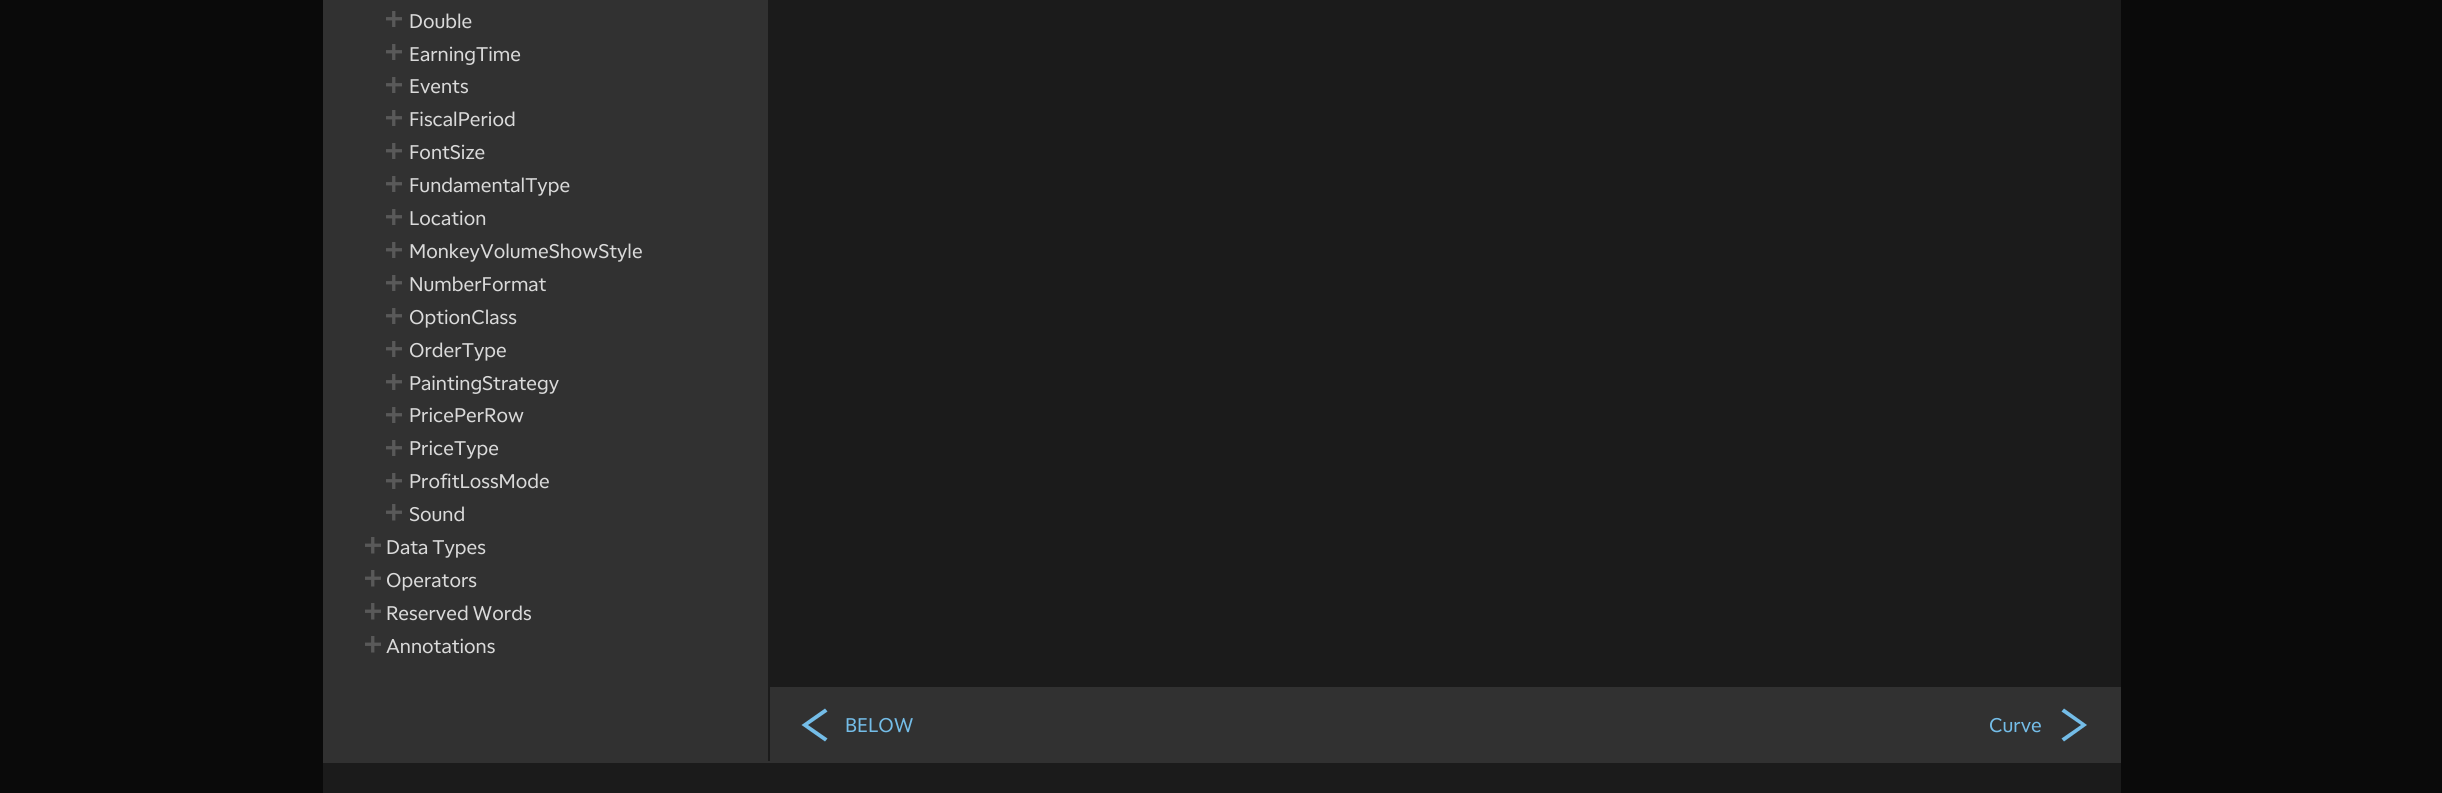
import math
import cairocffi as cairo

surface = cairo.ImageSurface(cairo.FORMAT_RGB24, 2442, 793)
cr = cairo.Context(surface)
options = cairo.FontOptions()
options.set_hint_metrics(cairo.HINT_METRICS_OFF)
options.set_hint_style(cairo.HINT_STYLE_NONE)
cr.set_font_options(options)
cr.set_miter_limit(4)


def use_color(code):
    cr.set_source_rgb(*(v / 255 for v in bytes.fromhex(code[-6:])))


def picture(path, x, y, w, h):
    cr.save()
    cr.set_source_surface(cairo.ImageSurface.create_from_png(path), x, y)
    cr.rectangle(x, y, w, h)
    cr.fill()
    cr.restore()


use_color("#0a0a0a")
cr.paint()
use_color("#313131")
cr.rectangle(323, 0, 445, 761)
cr.fill()
picture("img1.png", 386, 11, 16, 16)
cr.select_font_face("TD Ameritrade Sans")
cr.set_font_size(19.75)
use_color("#dadada")
cr.move_to(409, 28)
cr.show_text("Double")
picture("img1.png", 386, 44, 16, 16)
cr.move_to(409, 61)
cr.show_text("EarningTime")
picture("img1.png", 386, 77, 16, 16)
cr.move_to(409, 93)
cr.show_text("Events")
picture("img1.png", 386, 110, 16, 16)
cr.move_to(409, 126)
cr.show_text("FiscalPeriod")
picture("img1.png", 386, 143, 16, 16)
cr.move_to(409, 159)
cr.show_text("FontSize")
picture("img1.png", 386, 176, 16, 16)
cr.move_to(409, 192)
cr.show_text("FundamentalType")
picture("img1.png", 386, 209, 16, 16)
cr.move_to(409, 225)
cr.show_text("Location")
picture("img1.png", 386, 242, 16, 16)
cr.move_to(409, 258)
cr.show_text("MonkeyVolumeShowStyle")
picture("img1.png", 386, 275, 16, 16)
cr.move_to(409, 291)
cr.show_text("NumberFormat")
picture("img1.png", 386, 308, 16, 16)
cr.save()
cr.rectangle(410, 303, 108, 26)
cr.clip()
cr.move_to(409, 324)
cr.show_text("OptionClass")
cr.restore()
picture("img1.png", 386, 341, 16, 16)
cr.save()
cr.rectangle(410, 336, 97, 26)
cr.clip()
cr.move_to(409, 357)
cr.show_text("OrderType")
cr.restore()
picture("img1.png", 386, 374, 16, 16)
cr.move_to(409, 390)
cr.show_text("PaintingStrategy")
picture("img1.png", 386, 407, 16, 16)
cr.move_to(409, 422)
cr.show_text("PricePerRow")
picture("img1.png", 386, 440, 16, 16)
cr.move_to(409, 455)
cr.show_text("PriceType")
picture("img1.png", 386, 473, 16, 16)
cr.move_to(409, 488)
cr.show_text("ProfitLossMode")
picture("img2.png", 386, 504, 16, 17)
cr.save()
cr.rectangle(410, 500, 55, 25)
cr.clip()
cr.move_to(409, 521)
cr.show_text("Sound")
cr.restore()
picture("img2.png", 365, 537, 16, 17)
cr.move_to(386, 554)
cr.show_text("Data Types")
picture("img2.png", 365, 570, 16, 17)
cr.move_to(386, 587)
cr.show_text("Operators")
picture("img2.png", 365, 603, 16, 17)
cr.move_to(386, 620)
cr.show_text("Reserved Words")
picture("img2.png", 365, 636, 16, 17)
cr.move_to(386, 653)
cr.show_text("Annotations")
use_color("#1b1b1b")
cr.rectangle(768, 0, 1353, 687)
cr.fill()
use_color("#313131")
cr.rectangle(770, 687, 1351, 74)
cr.fill()
use_color("#1b1b1b")
cr.rectangle(768, 687, 2, 74)
cr.fill()
use_color("#74bde8")
cr.set_fill_rule(cairo.FILL_RULE_EVEN_ODD)
cr.new_path()
cr.move_to(808, 725)
cr.line_to(827.5, 738.5)
cr.line_to(825, 741.5)
cr.line_to(801.5, 725)
cr.line_to(825, 708.5)
cr.line_to(827.5, 711.5)
cr.close_path()
cr.fill()
cr.move_to(845, 732)
cr.show_text("BELOW")
cr.move_to(1989, 732)
cr.show_text("Curve")
cr.new_path()
cr.move_to(2081, 725)
cr.line_to(2061.5, 711.5)
cr.line_to(2064, 708.5)
cr.line_to(2087, 725)
cr.line_to(2064, 741.5)
cr.line_to(2061.5, 738.5)
cr.close_path()
cr.fill()
use_color("#1b1b1b")
cr.rectangle(323, 763, 1798, 30)
cr.fill()
use_color("#313131")
cr.rectangle(323, 761, 1798, 2)
cr.fill()
surface.write_to_png("result.png")
